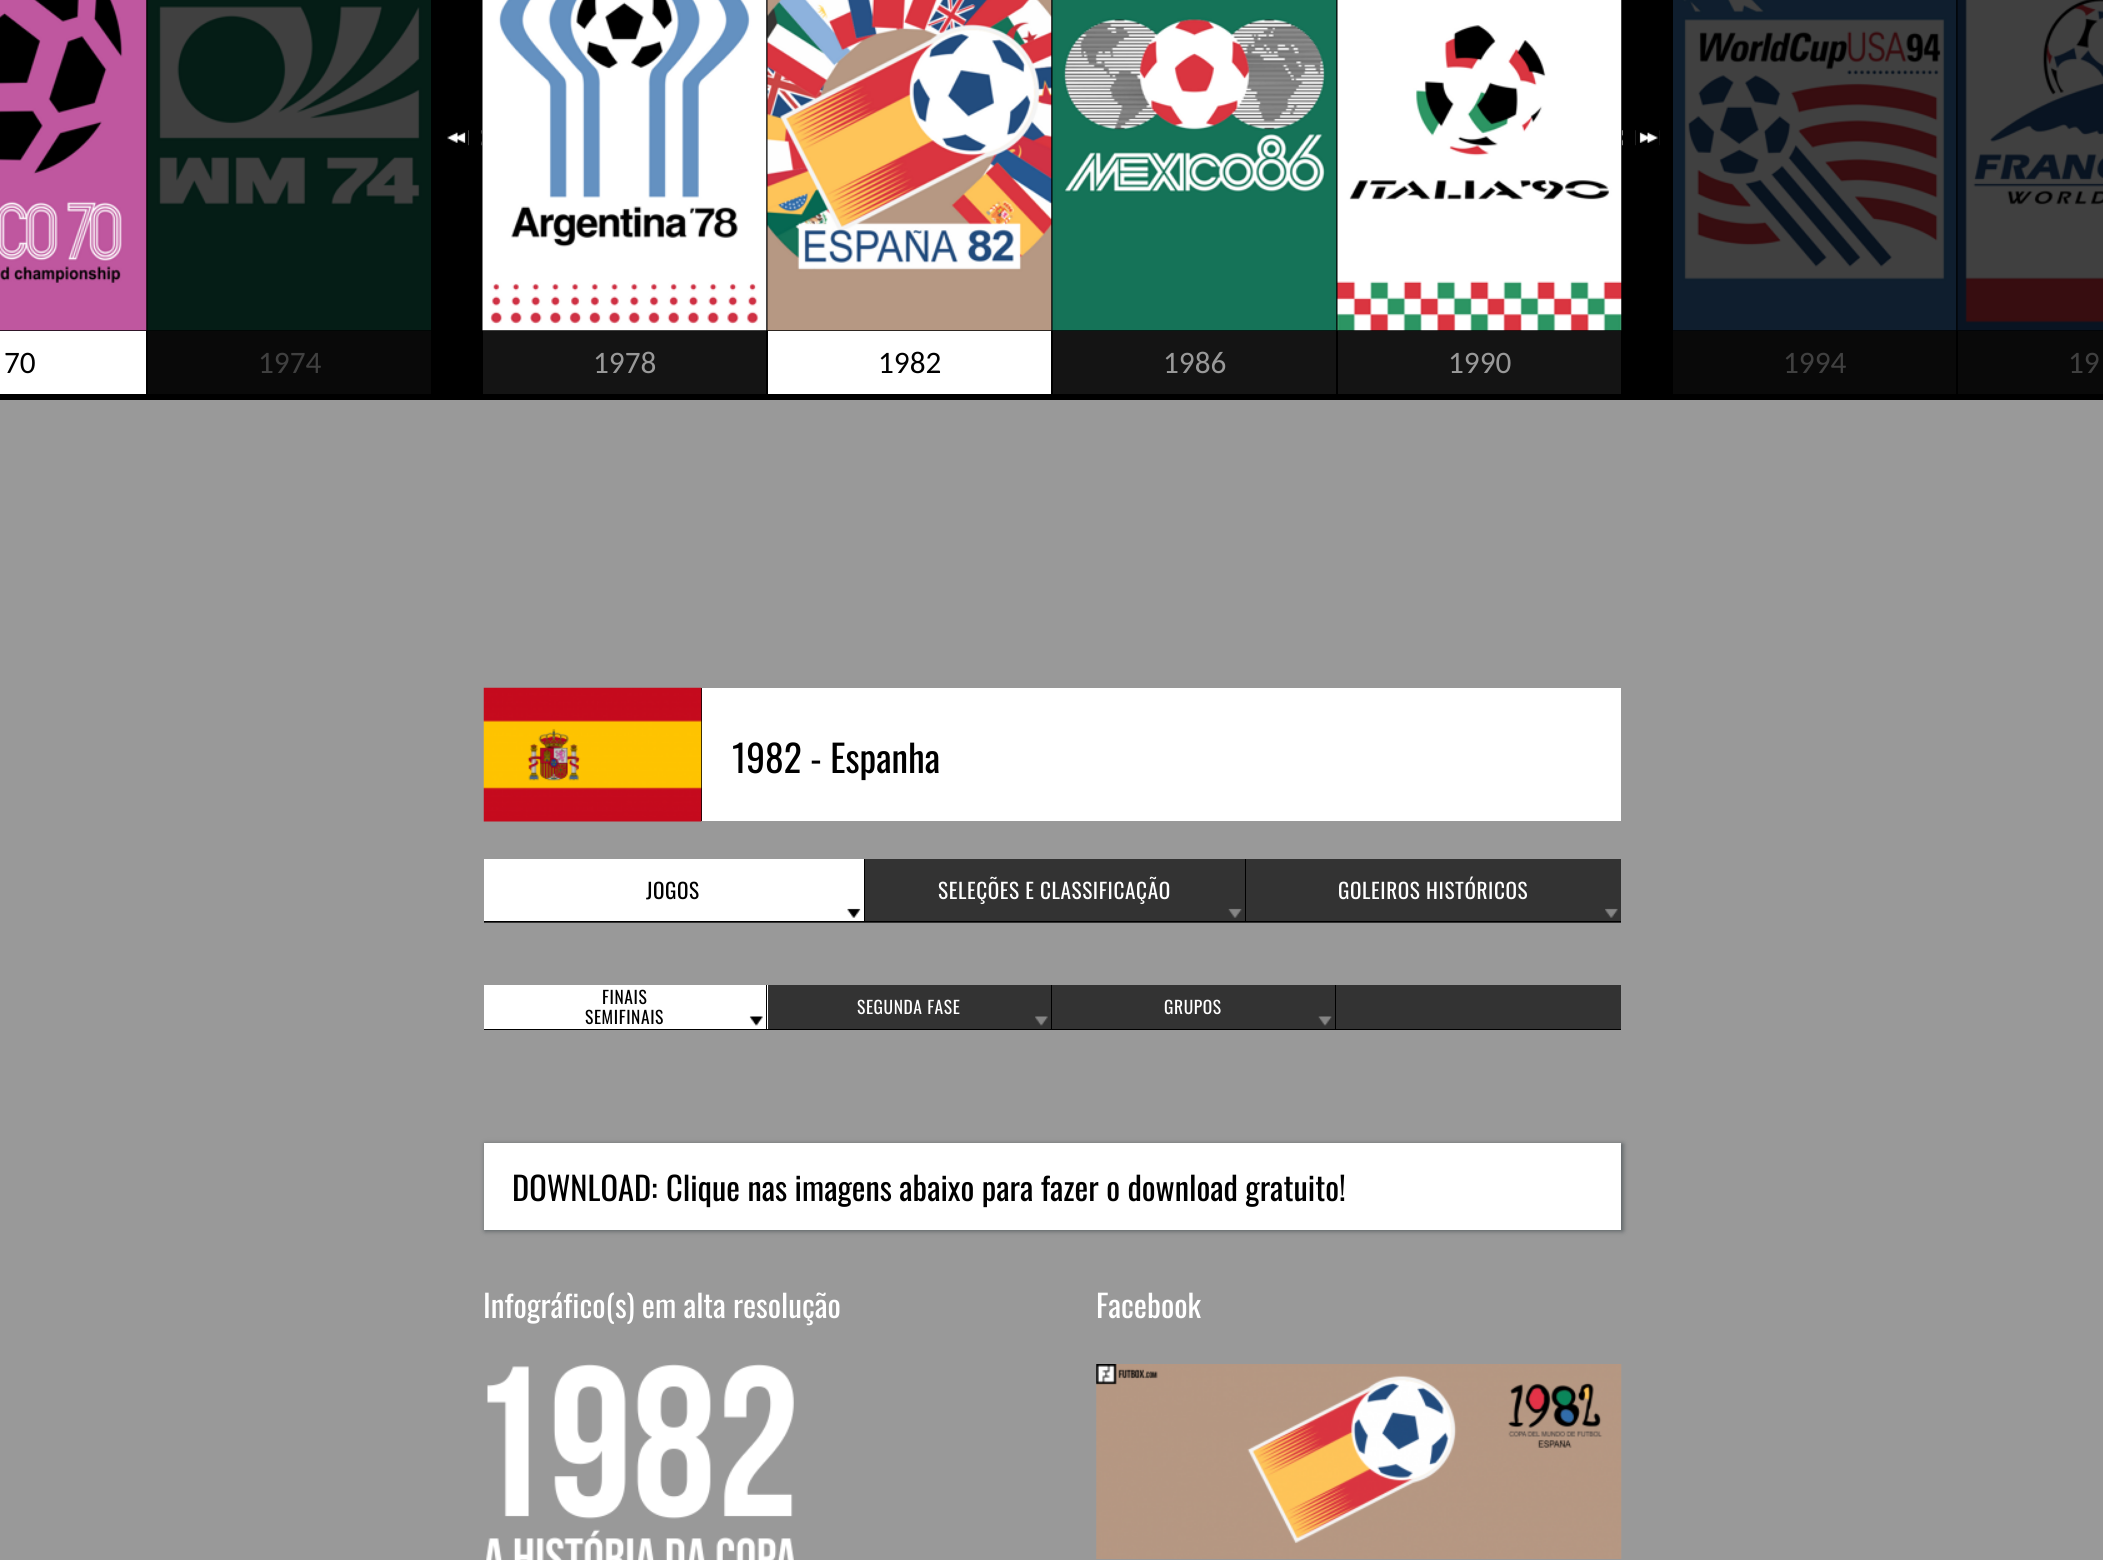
import math
import cairocffi as cairo

surface = cairo.ImageSurface(cairo.FORMAT_RGB24, 2103, 1560)
cr = cairo.Context(surface)
options = cairo.FontOptions()
options.set_hint_metrics(cairo.HINT_METRICS_OFF)
options.set_hint_style(cairo.HINT_STYLE_NONE)
cr.set_font_options(options)
cr.set_miter_limit(4)


def use_color(code):
    cr.set_source_rgb(*(v / 255 for v in bytes.fromhex(code[-6:])))


def spaced_text(x, y, s, letter, word):
    cr.move_to(x, y)
    for ch in s:
        cr.show_text(ch)
        cr.rel_move_to(letter + word * (ch == ' '), 0)


def round_rect(x, y, w, h, r):
    cr.new_sub_path()
    for i, (u, v) in enumerate([(x + w - r, y + h - r), (x + r, y + h - r), (x + r, y + r), (x + w - r, y + r)]):
        cr.arc(u, v, r, i * math.pi / 2, (i + 1) * math.pi / 2)
    cr.close_path()


def shadow(x, y, w, h, r, blur, alpha):
    cr.push_group_with_content(cairo.CONTENT_ALPHA)
    cr.set_operator(cairo.OPERATOR_SOURCE)
    for i in range(15, -16, -2):
        e = blur * i / 6
        if min(w, h) + 2 * e > 0:
            cr.set_source_rgba(0, 0, 0, alpha * math.erfc((i - 1) / 8.5) / 2)
            round_rect(x - e, y - e, w + 2 * e, h + 2 * e, max(0, min(r + e + blur * .6, min(w, h) / 2 + e)))
            cr.fill()
    cr.mask(cr.pop_group())


def picture(path, x, y, w, h):
    cr.save()
    cr.set_source_surface(cairo.ImageSurface.create_from_png(path), x, y)
    cr.rectangle(x, y, w, h)
    cr.fill()
    cr.restore()


use_color("#999999")
cr.paint()
use_color("#000000")
cr.rectangle(0, 0, 2103, 400)
cr.fill()
picture("img1.png", 447, 130, 35, 16)
cr.rectangle(469, 130, 12, 16)
cr.fill()
picture("img2.png", 1622, 130, 38, 16)
cr.rectangle(1623, 130, 12, 16)
cr.fill()
picture("img3.png", 0, 0, 147, 331)
use_color("#ffffff")
cr.rectangle(0, 331, 146, 63)
cr.fill()
cr.select_font_face("Carlito")
cr.set_font_size(31.25)
use_color("#000000")
cr.move_to(4, 373)
cr.show_text("70")
picture("img4.png", 147, 0, 284, 331)
use_color("#090909")
cr.rectangle(148, 331, 283, 63)
cr.fill()
use_color("#404040")
cr.move_to(258, 373)
cr.show_text("1974")
picture("img5.png", 482, 0, 285, 331)
use_color("#141414")
cr.rectangle(483, 331, 283, 63)
cr.fill()
use_color("#999999")
cr.move_to(593, 373)
cr.show_text("1978")
picture("img6.png", 767, 0, 285, 331)
use_color("#ffffff")
cr.rectangle(768, 331, 283, 63)
cr.fill()
use_color("#000000")
cr.move_to(878, 373)
cr.show_text("1982")
picture("img7.png", 1052, 0, 285, 331)
use_color("#141414")
cr.rectangle(1053, 331, 283, 63)
cr.fill()
use_color("#999999")
cr.move_to(1163, 373)
cr.show_text("1986")
picture("img8.png", 1337, 0, 285, 331)
use_color("#141414")
cr.rectangle(1338, 331, 283, 63)
cr.fill()
use_color("#999999")
cr.move_to(1448, 373)
cr.show_text("1990")
picture("img9.png", 1673, 0, 284, 331)
use_color("#090909")
cr.rectangle(1673, 331, 283, 63)
cr.fill()
use_color("#404040")
cr.move_to(1783, 373)
cr.show_text("1994")
picture("img10.png", 1957, 0, 146, 331)
use_color("#090909")
cr.rectangle(1958, 331, 145, 63)
cr.fill()
use_color("#404040")
cr.move_to(2068, 373)
cr.show_text("19")
use_color("#ffffff")
cr.rectangle(702, 688, 919, 133)
cr.fill()
use_color("#000000")
cr.rectangle(701, 688, 1, 133)
cr.fill()
picture("img11.png", 483, 687, 219, 135)
cr.select_font_face("Oswald")
cr.set_font_size(37.5)
cr.move_to(732, 773)
cr.show_text("1982 - Espanha")
use_color("#333333")
cr.rectangle(484, 859, 1137, 64)
cr.fill()
use_color("#000000")
cr.rectangle(484, 921, 1137, 1)
cr.fill()
use_color("#ffffff")
cr.rectangle(484, 859, 380, 62)
cr.fill()
picture("img12.png", 847, 908, 14, 10)
use_color("#000000")
cr.rectangle(864, 859, 1, 62)
cr.fill()
cr.set_font_size(21.25)
spaced_text(646, 899, "JOGOS", 0.6, 0)
picture("img13.png", 1228, 908, 14, 10)
cr.rectangle(1245, 859, 1, 62)
cr.fill()
use_color("#ffffff")
spaced_text(938, 899, "SELEÇÕES E CLASSIFICAÇÃO", 0.6, 0)
picture("img14.png", 1605, 908, 13, 10)
spaced_text(1338, 899, "GOLEIROS HISTÓRICOS", 0.6, 0)
use_color("#333333")
cr.rectangle(768, 985, 853, 44)
cr.fill()
use_color("#000000")
cr.rectangle(484, 1029, 1137, 1)
cr.fill()
use_color("#ffffff")
cr.rectangle(484, 985, 284, 44)
cr.fill()
picture("img15.png", 749, 1016, 14, 10)
use_color("#000000")
cr.rectangle(766, 985, 1, 44)
cr.fill()
cr.set_font_size(17.5)
spaced_text(602, 1004, "FINAIS", 0.6, 0)
spaced_text(585, 1024, "SEMIFINAIS", 0.6, 0)
picture("img16.png", 1035, 1016, 13, 10)
cr.rectangle(1051, 985, 1, 44)
cr.fill()
use_color("#ffffff")
spaced_text(857, 1014, "SEGUNDA FASE", 0.6, 0)
picture("img17.png", 1318, 1016, 14, 10)
use_color("#000000")
cr.rectangle(1335, 985, 1, 44)
cr.fill()
use_color("#ffffff")
spaced_text(1164, 1014, "GRUPOS", 0.6, 0)
use_color("#575e61")
shadow(485, 1144, 1138, 87, 0, 2.5, 1)
use_color("#ffffff")
cr.rectangle(484, 1143, 1137, 87)
cr.fill()
cr.set_font_size(32.5)
use_color("#000000")
cr.move_to(512, 1201)
cr.show_text("DOWNLOAD:")
cr.move_to(666, 1201)
cr.show_text("Clique nas imagens abaixo para fazer o download gratuito!")
cr.set_font_size(31.25)
use_color("#ffffff")
cr.move_to(483, 1318)
cr.show_text("Infográfico(s) em alta resolução")
picture("img18.png", 486, 1364, 308, 196)
cr.move_to(1096, 1318)
cr.show_text("Facebook")
picture("img19.png", 1096, 1364, 526, 195)
surface.write_to_png("result.png")
